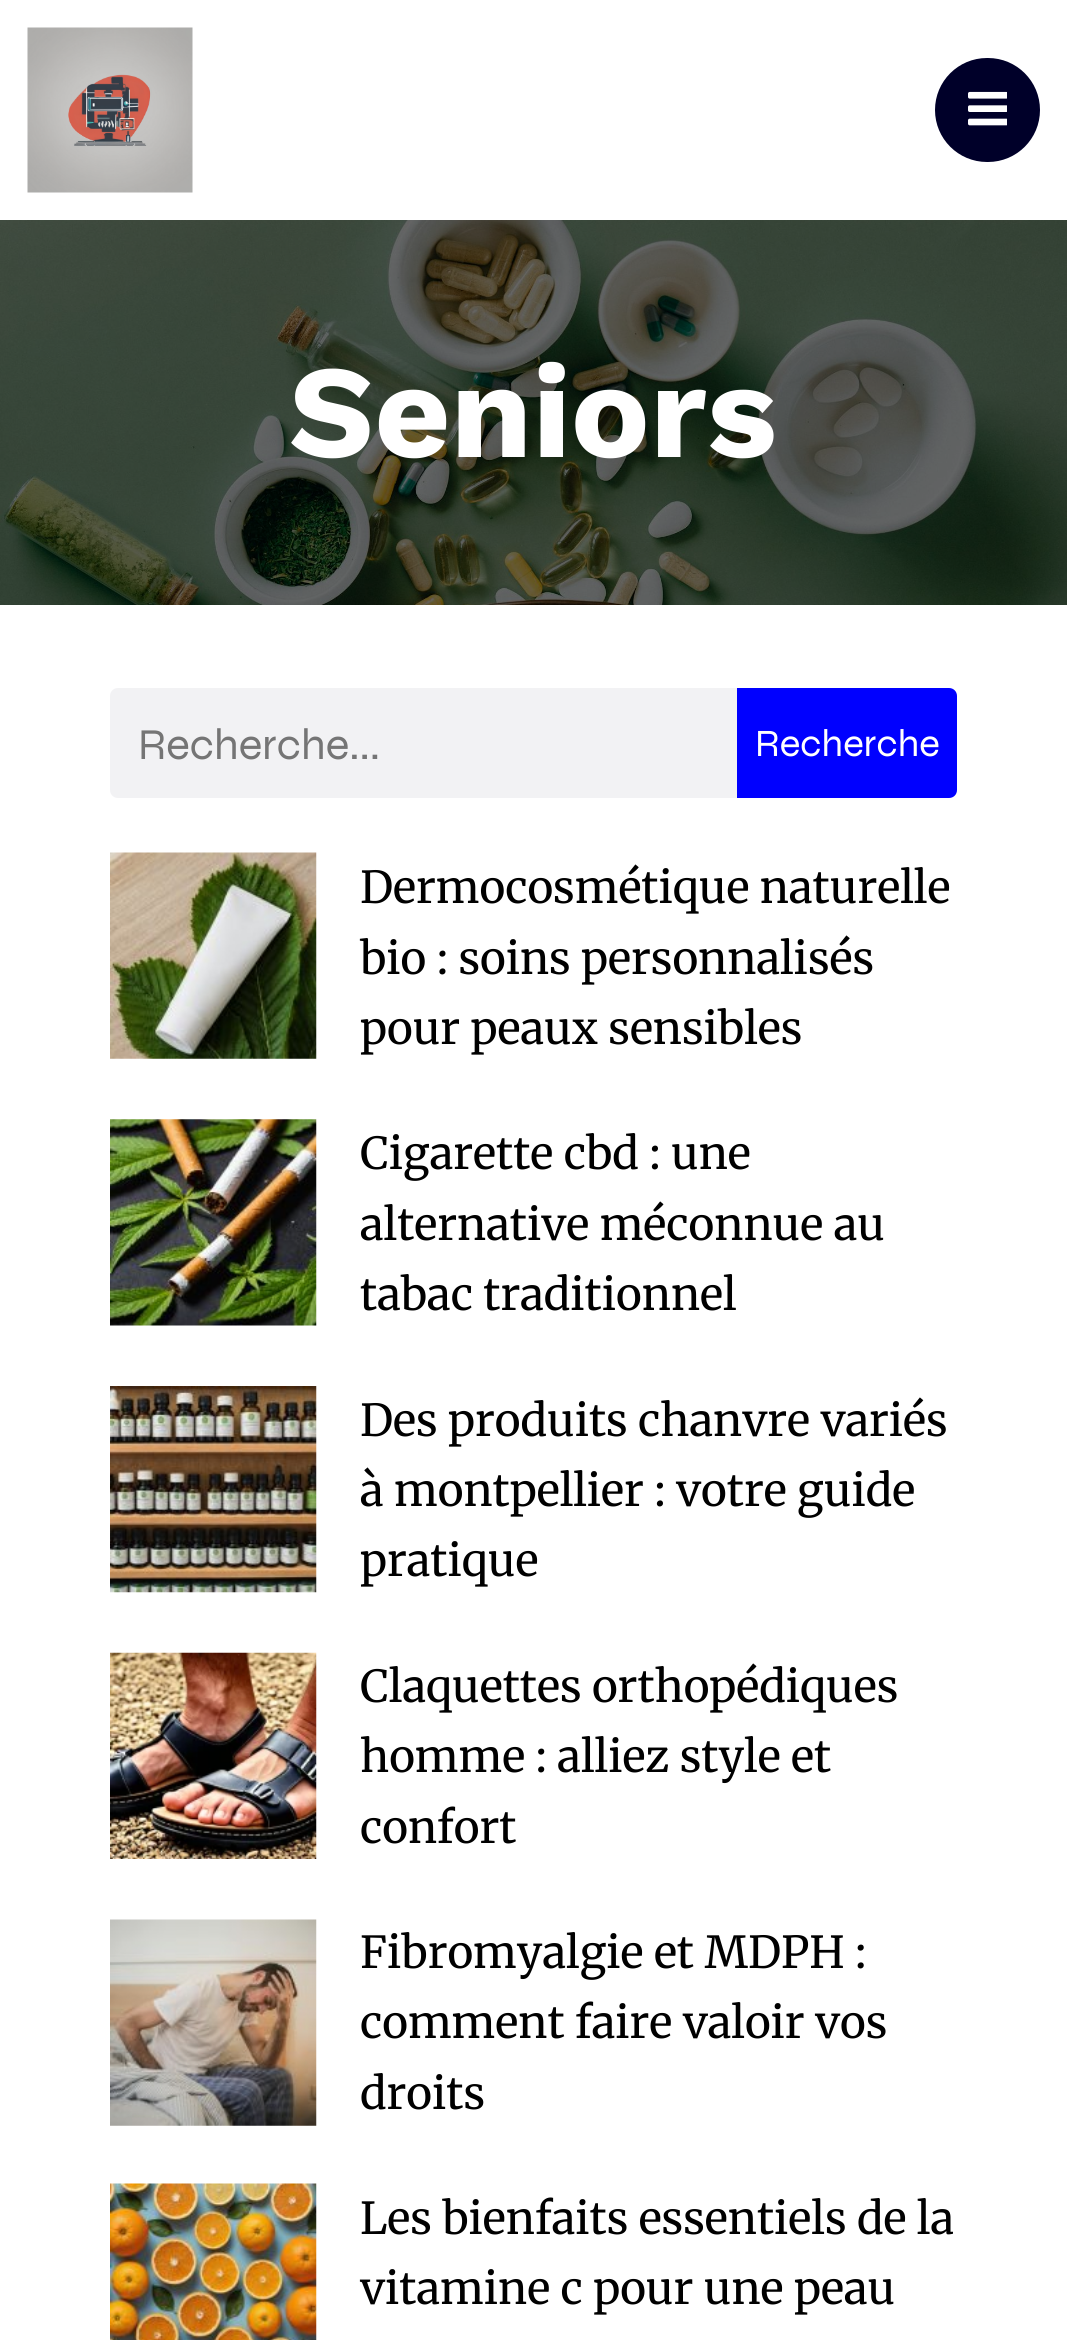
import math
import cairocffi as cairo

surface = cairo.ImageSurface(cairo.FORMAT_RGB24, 1067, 2340)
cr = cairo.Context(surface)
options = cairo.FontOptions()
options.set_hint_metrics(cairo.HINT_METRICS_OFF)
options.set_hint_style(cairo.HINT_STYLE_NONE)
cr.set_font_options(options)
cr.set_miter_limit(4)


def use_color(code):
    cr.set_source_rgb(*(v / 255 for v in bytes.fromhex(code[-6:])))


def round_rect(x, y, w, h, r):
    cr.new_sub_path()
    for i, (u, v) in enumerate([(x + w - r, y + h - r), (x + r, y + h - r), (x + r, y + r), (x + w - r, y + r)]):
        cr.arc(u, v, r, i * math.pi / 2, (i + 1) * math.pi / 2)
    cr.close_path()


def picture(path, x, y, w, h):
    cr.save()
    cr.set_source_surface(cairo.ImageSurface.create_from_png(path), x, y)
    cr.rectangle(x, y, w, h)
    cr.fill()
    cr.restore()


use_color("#ffffff")
cr.paint()
picture("img1.png", 27, 27, 166, 166)
use_color("#000029")
round_rect(935, 58, 105, 104, 52)
cr.fill()
picture("img2.png", 968, 91, 39, 35)
picture("img3.png", 0, 220, 1067, 385)
cr.select_font_face("Work Sans", cairo.FONT_SLANT_NORMAL, cairo.FONT_WEIGHT_BOLD)
cr.set_font_size(132)
use_color("#ffffff")
cr.move_to(289, 457)
cr.show_text("Seniors")
use_color("#f2f2f4")
cr.new_path()
cr.move_to(118, 688)
cr.line_to(737, 688)
cr.line_to(737, 798)
cr.line_to(118, 798)
cr.curve_to(113.5, 798, 110, 794.5, 110, 790)
cr.line_to(110, 696)
cr.curve_to(110, 691.5, 113.5, 688, 118, 688)
cr.close_path()
cr.fill()
cr.select_font_face("Syne")
cr.set_font_size(44)
use_color("#757575")
cr.move_to(138, 759)
cr.show_text("Recherche...")
use_color("#0000ff")
cr.new_path()
cr.move_to(737, 688)
cr.line_to(949, 688)
cr.curve_to(953.5, 688, 957, 691.5, 957, 696)
cr.line_to(957, 790)
cr.curve_to(957, 794.5, 953.5, 798, 949, 798)
cr.line_to(737, 798)
cr.close_path()
cr.fill()
cr.set_font_size(38.5)
use_color("#ffffff")
cr.move_to(755, 756)
cr.show_text("Recherche")
picture("img4.png", 110, 852, 207, 207)
cr.select_font_face("Merriweather")
cr.set_font_size(44)
use_color("#000000")
cr.move_to(360, 903)
cr.show_text("Dermocosmétique naturelle")
cr.move_to(360, 974)
cr.show_text("bio : soins personnalisés")
cr.move_to(360, 1044)
cr.show_text("pour peaux sensibles")
picture("img5.png", 110, 1119, 207, 207)
cr.move_to(360, 1169)
cr.show_text("Cigarette cbd : une")
cr.move_to(360, 1240)
cr.show_text("alternative méconnue au")
cr.move_to(360, 1310)
cr.show_text("tabac traditionnel")
picture("img6.png", 110, 1386, 207, 207)
cr.move_to(360, 1436)
cr.show_text("Des produits chanvre variés")
cr.move_to(360, 1506)
cr.show_text("à montpellier : votre guide")
cr.move_to(360, 1576)
cr.show_text("pratique")
picture("img7.png", 110, 1652, 207, 207)
cr.move_to(360, 1702)
cr.show_text("Claquettes orthopédiques")
cr.move_to(360, 1772)
cr.show_text("homme : alliez style et")
cr.move_to(360, 1843)
cr.show_text("confort")
picture("img8.png", 110, 1919, 207, 207)
cr.move_to(360, 1968)
cr.show_text("Fibromyalgie et MDPH :")
cr.move_to(360, 2038)
cr.show_text("comment faire valoir vos")
cr.move_to(360, 2109)
cr.show_text("droits")
picture("img9.png", 110, 2183, 207, 157)
cr.move_to(360, 2234)
cr.show_text("Les bienfaits essentiels de la")
cr.move_to(360, 2304)
cr.show_text("vitamine c pour une peau")
surface.write_to_png("result.png")
